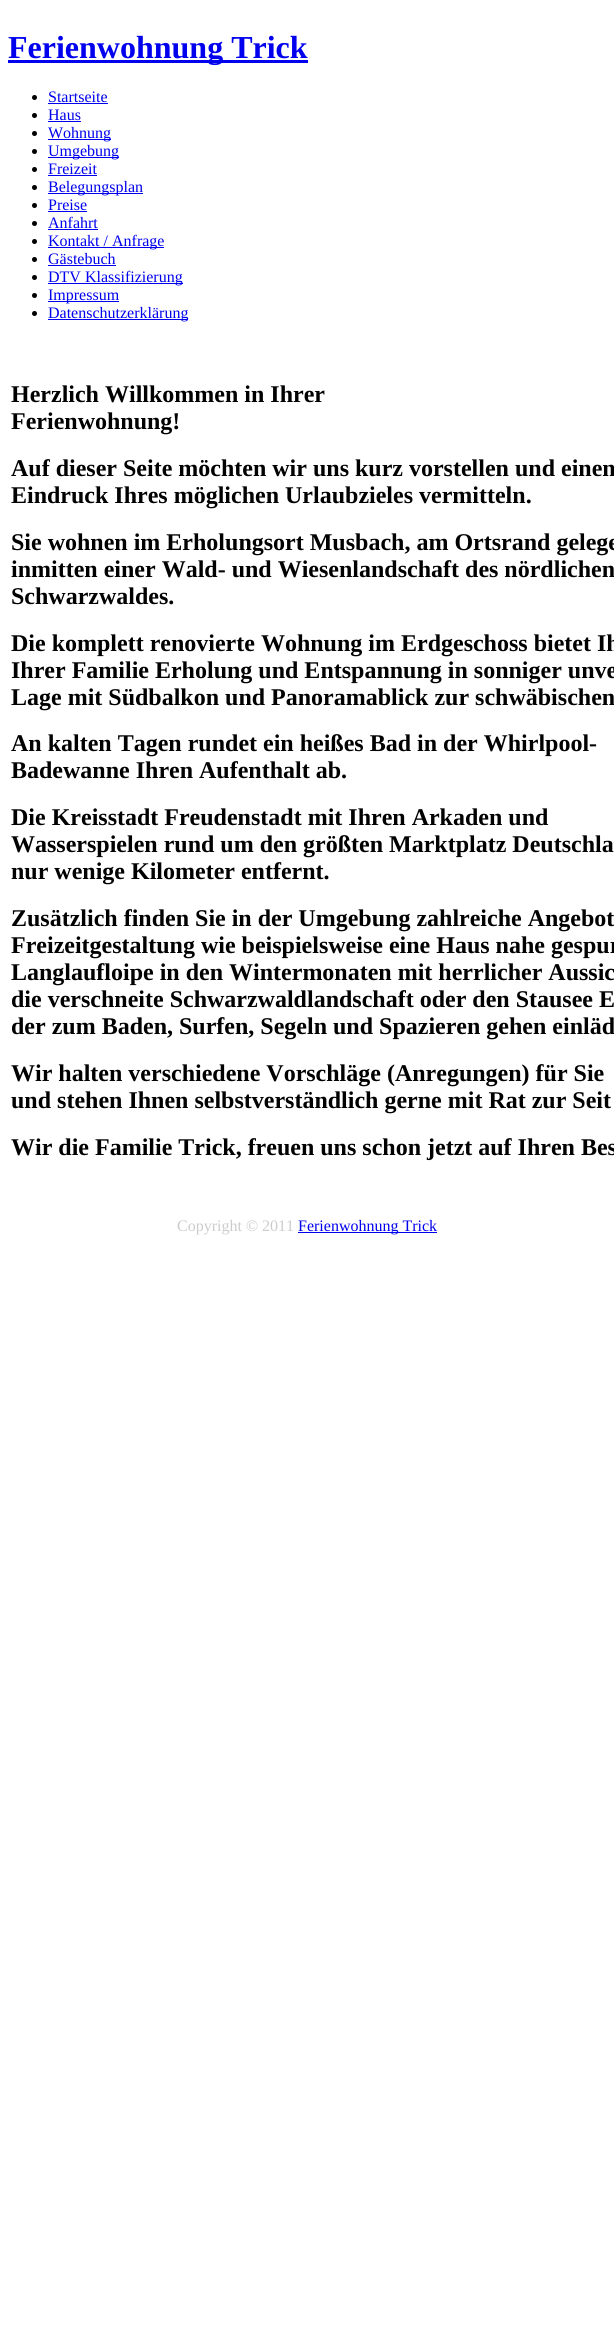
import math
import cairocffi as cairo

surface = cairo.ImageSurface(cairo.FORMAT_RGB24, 614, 2326)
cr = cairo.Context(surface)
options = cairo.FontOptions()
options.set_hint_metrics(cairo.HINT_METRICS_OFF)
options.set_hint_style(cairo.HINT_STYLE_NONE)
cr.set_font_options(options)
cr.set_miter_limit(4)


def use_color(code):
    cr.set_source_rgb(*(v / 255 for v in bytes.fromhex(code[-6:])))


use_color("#ffffff")
cr.paint()
use_color("#0000ee")
cr.rectangle(8, 60, 300, 3)
cr.fill()
cr.select_font_face("Liberation Serif", cairo.FONT_SLANT_NORMAL, cairo.FONT_WEIGHT_BOLD)
cr.set_font_size(32)
cr.move_to(8, 58)
cr.show_text("Ferienwohnung Trick")
use_color("#000000")
cr.new_path()
cr.arc(34.5, 97.5, 2.5, 0, 2 * math.pi)
cr.fill()
cr.select_font_face("Liberation Serif")
cr.set_font_size(16)
use_color("#0000ee")
cr.move_to(48, 102)
cr.show_text("Startseite")
cr.rectangle(48, 103, 60, 1)
cr.fill()
use_color("#000000")
cr.arc(34.5, 115.5, 2.5, 0, 2 * math.pi)
cr.fill()
use_color("#0000ee")
cr.move_to(48, 120)
cr.show_text("Haus")
cr.rectangle(48, 121, 33, 1)
cr.fill()
use_color("#000000")
cr.arc(34.5, 133.5, 2.5, 0, 2 * math.pi)
cr.fill()
use_color("#0000ee")
cr.rectangle(48, 139, 63, 1)
cr.fill()
cr.move_to(48, 138)
cr.show_text("Wohnung")
use_color("#000000")
cr.new_path()
cr.arc(34.5, 151.5, 2.5, 0, 2 * math.pi)
cr.fill()
use_color("#0000ee")
cr.rectangle(48, 157, 71, 1)
cr.fill()
cr.move_to(48, 156)
cr.show_text("Umgebung")
use_color("#000000")
cr.new_path()
cr.arc(34.5, 169.5, 2.5, 0, 2 * math.pi)
cr.fill()
use_color("#0000ee")
cr.move_to(48, 174)
cr.show_text("Freizeit")
cr.rectangle(48, 175, 49, 1)
cr.fill()
use_color("#000000")
cr.arc(34.5, 187.5, 2.5, 0, 2 * math.pi)
cr.fill()
use_color("#0000ee")
cr.rectangle(48, 193, 95, 1)
cr.fill()
cr.move_to(48, 192)
cr.show_text("Belegungsplan")
use_color("#000000")
cr.new_path()
cr.arc(34.5, 205.5, 2.5, 0, 2 * math.pi)
cr.fill()
use_color("#0000ee")
cr.move_to(48, 210)
cr.show_text("Preise")
cr.rectangle(48, 211, 39, 1)
cr.fill()
use_color("#000000")
cr.arc(34.5, 223.5, 2.5, 0, 2 * math.pi)
cr.fill()
use_color("#0000ee")
cr.move_to(48, 228)
cr.show_text("Anfahrt")
cr.rectangle(48, 229, 50, 1)
cr.fill()
use_color("#000000")
cr.arc(34.5, 241.5, 2.5, 0, 2 * math.pi)
cr.fill()
use_color("#0000ee")
cr.rectangle(48, 247, 116, 1)
cr.fill()
cr.move_to(48, 246)
cr.show_text("Kontakt / Anfrage")
use_color("#000000")
cr.new_path()
cr.arc(34.5, 259.5, 2.5, 0, 2 * math.pi)
cr.fill()
use_color("#0000ee")
cr.move_to(48, 264)
cr.show_text("Gästebuch")
cr.rectangle(48, 265, 68, 1)
cr.fill()
use_color("#000000")
cr.arc(34.5, 277.5, 2.5, 0, 2 * math.pi)
cr.fill()
use_color("#0000ee")
cr.rectangle(48, 283, 135, 1)
cr.fill()
cr.move_to(48, 282)
cr.show_text("DTV Klassifizierung")
use_color("#000000")
cr.new_path()
cr.arc(34.5, 295.5, 2.5, 0, 2 * math.pi)
cr.fill()
use_color("#0000ee")
cr.rectangle(48, 301, 71, 1)
cr.fill()
cr.move_to(48, 300)
cr.show_text("Impressum")
use_color("#000000")
cr.new_path()
cr.arc(34.5, 313.5, 2.5, 0, 2 * math.pi)
cr.fill()
use_color("#0000ee")
cr.rectangle(48, 319, 140, 1)
cr.fill()
cr.move_to(48, 318)
cr.show_text("Datenschutzerklärung")
cr.select_font_face("Liberation Serif", cairo.FONT_SLANT_NORMAL, cairo.FONT_WEIGHT_BOLD)
cr.set_font_size(24)
use_color("#000000")
cr.move_to(11, 402)
cr.show_text("Herzlich Willkommen in Ihrer")
cr.move_to(11, 429)
cr.show_text("Ferienwohnung!")
cr.move_to(11, 476)
cr.show_text("Auf dieser Seite möchten wir uns kurz vorstellen und einen")
cr.move_to(11, 503)
cr.show_text("Eindruck Ihres möglichen Urlaubzieles vermitteln.")
cr.move_to(11, 550)
cr.show_text("Sie wohnen im Erholungsort Musbach, am Ortsrand gelege")
cr.move_to(11, 577)
cr.show_text("inmitten einer Wald- und Wiesenlandschaft des nördlichen")
cr.move_to(11, 604)
cr.show_text("Schwarzwaldes.")
cr.move_to(11, 651)
cr.show_text("Die komplett renovierte Wohnung im Erdgeschoss bietet Ih")
cr.move_to(11, 678)
cr.show_text("Ihrer Familie Erholung und Entspannung in sonniger unve")
cr.move_to(11, 705)
cr.show_text("Lage mit Südbalkon und Panoramablick zur schwäbischen")
cr.move_to(11, 751)
cr.show_text("An kalten Tagen rundet ein heißes Bad in der Whirlpool-")
cr.move_to(11, 778)
cr.show_text("Badewanne Ihren Aufenthalt ab.")
cr.move_to(11, 825)
cr.show_text("Die Kreisstadt Freudenstadt mit Ihren Arkaden und")
cr.move_to(11, 852)
cr.show_text("Wasserspielen rund um den größten Marktplatz Deutschla")
cr.move_to(11, 879)
cr.show_text("nur wenige Kilometer entfernt.")
cr.move_to(11, 926)
cr.show_text("Zusätzlich finden Sie in der Umgebung zahlreiche Angebot")
cr.move_to(11, 953)
cr.show_text("Freizeitgestaltung wie beispielsweise eine Haus nahe gespur")
cr.move_to(11, 980)
cr.show_text("Langlaufloipe in den Wintermonaten mit herrlicher Aussic")
cr.move_to(11, 1007)
cr.show_text("die verschneite Schwarzwaldlandschaft oder den Stausee E")
cr.move_to(11, 1034)
cr.show_text("der zum Baden, Surfen, Segeln und Spazieren gehen einläd")
cr.move_to(11, 1081)
cr.show_text("Wir halten verschiedene Vorschläge (Anregungen) für Sie")
cr.move_to(11, 1108)
cr.show_text("und stehen Ihnen selbstverständlich gerne mit Rat zur Seit")
cr.move_to(11, 1155)
cr.show_text("Wir die Familie Trick, freuen uns schon jetzt auf Ihren Bes")
cr.select_font_face("Liberation Serif")
cr.set_font_size(16)
use_color("#cccccc")
cr.move_to(177, 1231)
cr.show_text("Copyright © 2011")
use_color("#0000ee")
cr.rectangle(298, 1232, 139, 1)
cr.fill()
cr.move_to(298, 1231)
cr.show_text("Ferienwohnung Trick")
surface.write_to_png("result.png")
